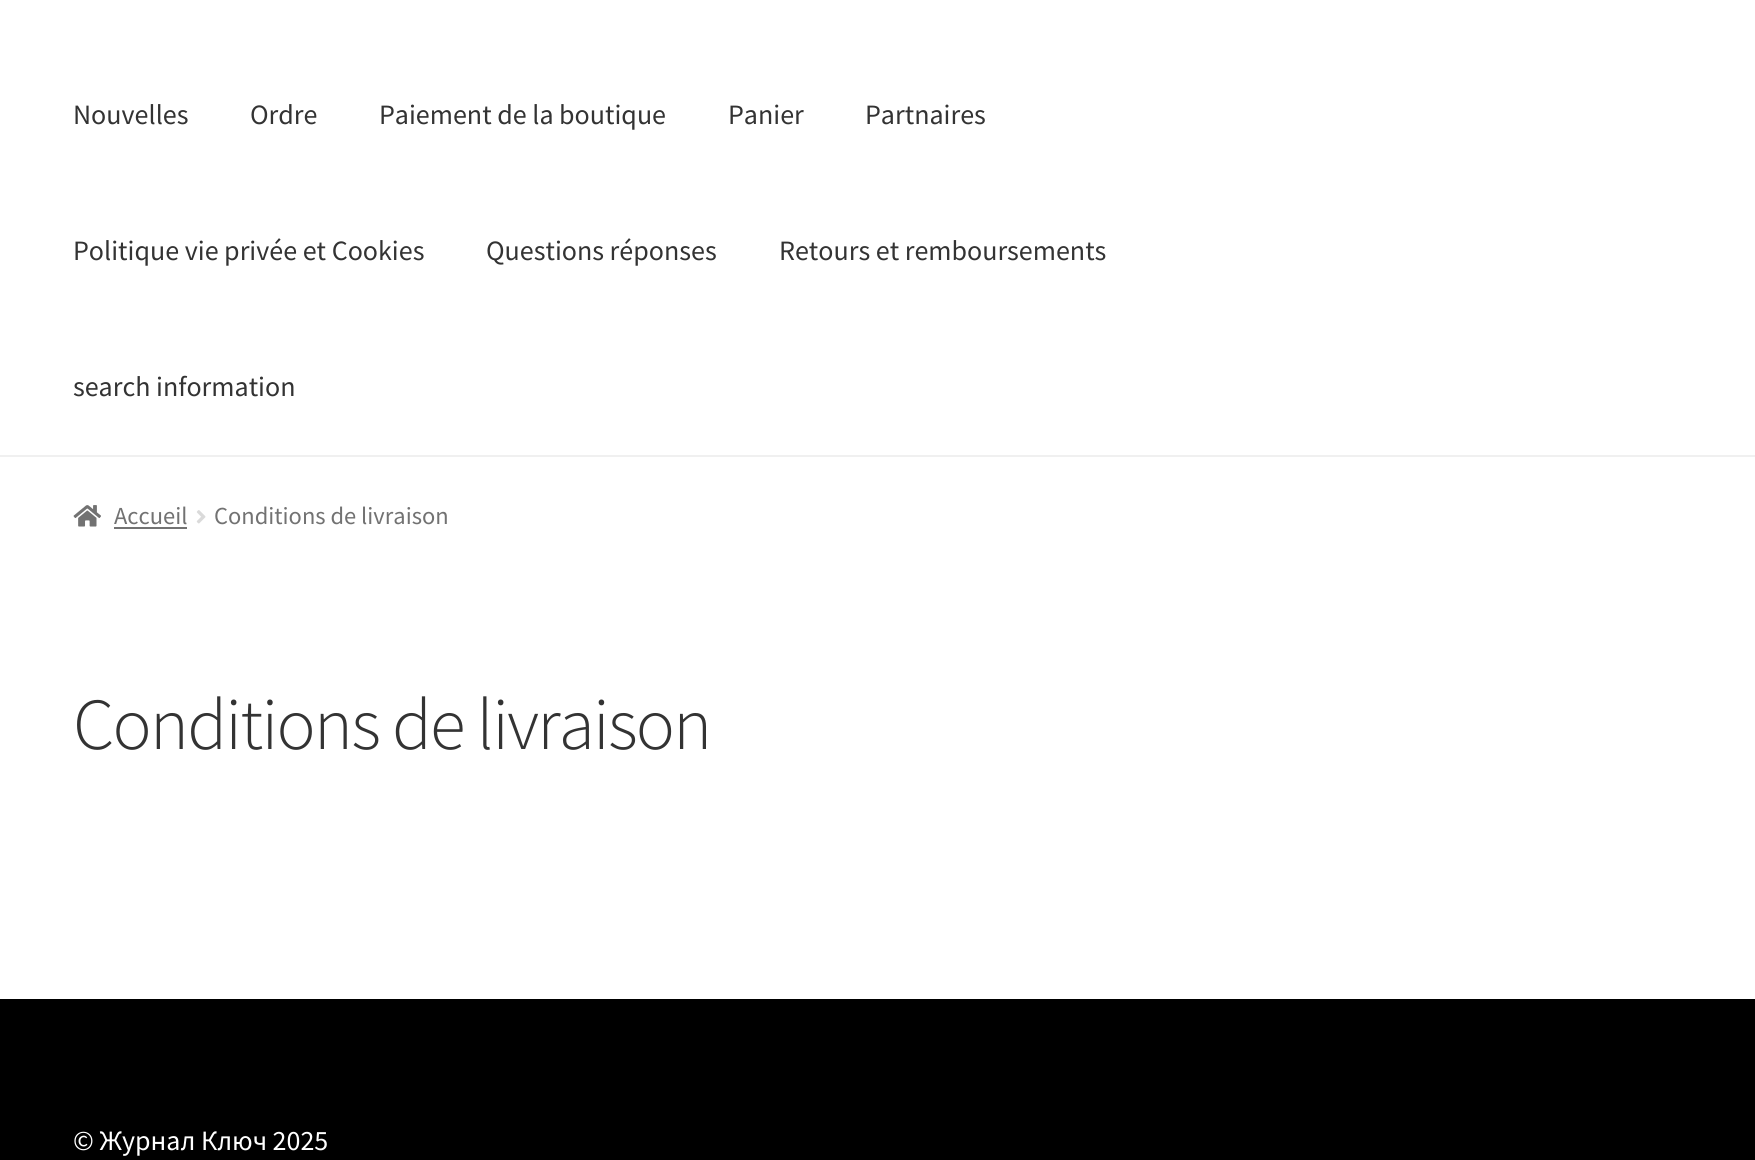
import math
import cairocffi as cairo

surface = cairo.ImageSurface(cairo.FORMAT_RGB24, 1755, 1160)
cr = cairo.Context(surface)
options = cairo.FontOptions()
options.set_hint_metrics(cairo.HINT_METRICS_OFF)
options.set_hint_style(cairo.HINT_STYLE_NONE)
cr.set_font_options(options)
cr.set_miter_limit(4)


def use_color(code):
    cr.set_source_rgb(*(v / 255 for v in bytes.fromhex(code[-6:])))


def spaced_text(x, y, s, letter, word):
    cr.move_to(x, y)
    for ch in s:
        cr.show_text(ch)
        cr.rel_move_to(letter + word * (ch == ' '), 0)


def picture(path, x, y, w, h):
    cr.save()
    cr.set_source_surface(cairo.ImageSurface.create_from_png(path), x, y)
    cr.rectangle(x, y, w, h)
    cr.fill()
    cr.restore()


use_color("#ffffff")
cr.paint()
use_color("#f0f0f0")
cr.rectangle(0, 455, 1755, 2)
cr.fill()
cr.select_font_face("Source Sans Pro")
cr.set_font_size(28)
use_color("#333333")
cr.move_to(73, 124)
cr.show_text("Nouvelles")
cr.move_to(250, 124)
cr.show_text("Ordre")
cr.move_to(379, 124)
cr.show_text("Paiement de la boutique")
cr.move_to(728, 124)
cr.show_text("Panier")
cr.move_to(865, 124)
cr.show_text("Partnaires")
cr.move_to(73, 260)
cr.show_text("Politique vie privée et Cookies")
cr.move_to(486, 260)
cr.show_text("Questions réponses")
cr.move_to(779, 260)
cr.show_text("Retours et remboursements")
cr.move_to(73, 396)
cr.show_text("search information")
picture("img1.png", 73, 505, 28, 22)
cr.set_font_size(24.5)
use_color("#727272")
cr.move_to(114, 524)
cr.show_text("Accueil")
cr.rectangle(114, 527, 73, 2)
cr.fill()
picture("img2.png", 196, 510, 10, 14)
cr.move_to(214, 524)
cr.show_text("Conditions de livraison")
cr.select_font_face("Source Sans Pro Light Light")
cr.set_font_size(73.25)
use_color("#333333")
spaced_text(73, 749, "Conditions de livraison", -1.75, 0)
use_color("#000000")
cr.rectangle(0, 999, 1755, 161)
cr.fill()
cr.select_font_face("Source Sans Pro")
cr.set_font_size(28)
use_color("#ffffff")
cr.move_to(73, 1150)
cr.show_text("© Журнал Ключ 2025")
surface.write_to_png("result.png")
